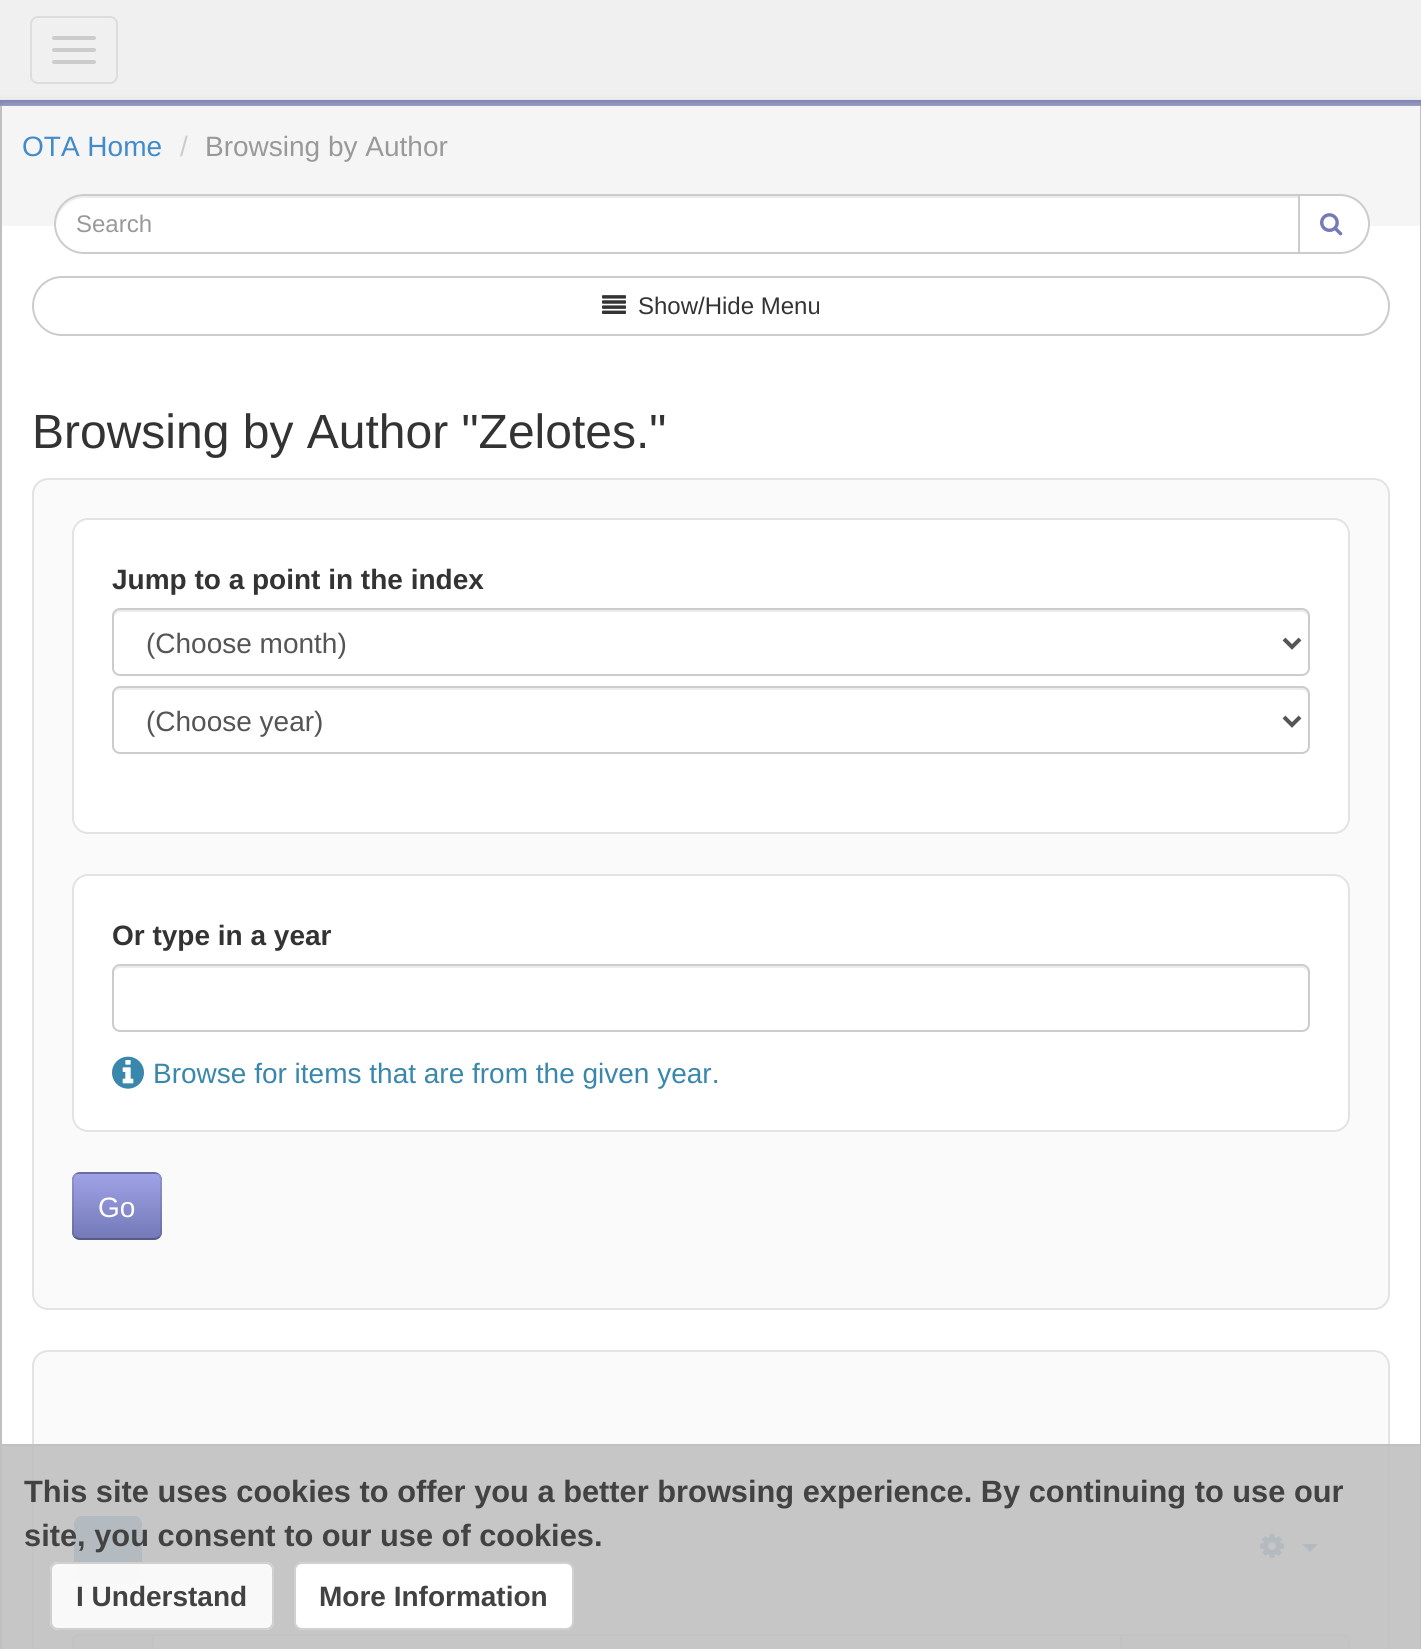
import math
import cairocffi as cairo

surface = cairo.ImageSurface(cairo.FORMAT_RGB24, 1421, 1649)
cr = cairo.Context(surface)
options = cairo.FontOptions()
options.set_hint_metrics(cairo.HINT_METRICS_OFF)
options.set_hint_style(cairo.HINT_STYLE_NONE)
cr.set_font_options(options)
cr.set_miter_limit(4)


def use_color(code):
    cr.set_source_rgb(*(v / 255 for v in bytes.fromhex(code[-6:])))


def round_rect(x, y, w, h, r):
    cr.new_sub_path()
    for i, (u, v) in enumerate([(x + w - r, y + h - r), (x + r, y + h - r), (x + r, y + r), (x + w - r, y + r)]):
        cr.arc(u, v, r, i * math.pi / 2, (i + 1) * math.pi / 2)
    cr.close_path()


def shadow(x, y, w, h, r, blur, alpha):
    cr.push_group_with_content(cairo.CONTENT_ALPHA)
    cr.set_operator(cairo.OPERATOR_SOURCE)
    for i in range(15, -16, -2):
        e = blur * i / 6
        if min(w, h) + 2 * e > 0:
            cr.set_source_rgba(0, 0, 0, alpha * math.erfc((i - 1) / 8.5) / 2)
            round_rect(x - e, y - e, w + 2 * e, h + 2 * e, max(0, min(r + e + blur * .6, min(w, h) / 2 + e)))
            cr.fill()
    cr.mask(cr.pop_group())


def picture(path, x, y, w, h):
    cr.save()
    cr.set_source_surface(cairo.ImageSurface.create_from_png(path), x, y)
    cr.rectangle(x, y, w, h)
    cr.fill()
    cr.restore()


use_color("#ffffff")
cr.paint()
use_color("#f0f0f0")
cr.rectangle(0, 0, 1421, 100)
cr.fill()
use_color("#7479b8")
cr.rectangle(0, 100, 1421, 6)
cr.fill()
round_rect(31, 17, 86, 66, 7)
use_color("#dddddd")
cr.stroke()
use_color("#cccccc")
round_rect(52, 36, 44, 4, 2)
cr.fill()
round_rect(52, 48, 44, 4, 2)
cr.fill()
round_rect(52, 60, 44, 4, 2)
cr.fill()
cr.save()
cr.rectangle(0, 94, 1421, 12)
cr.clip()
use_color("#c0c0c0")
shadow(0, 106, 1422, 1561, 0, 6, 1)
cr.restore()
use_color("#c0c0c0")
cr.rectangle(1420, 106, 1, 1543)
cr.fill()
cr.rectangle(0, 106, 2, 1543)
cr.fill()
use_color("#f5f5f5")
cr.rectangle(2, 106, 1418, 120)
cr.fill()
cr.select_font_face("Liberation Sans")
cr.set_font_size(28)
use_color("#428bca")
cr.move_to(22, 156)
cr.show_text("OTA Home")
use_color("#cccccc")
cr.move_to(180, 156)
cr.show_text("/")
use_color("#999999")
cr.move_to(205, 156)
cr.show_text("Browsing by Author")
use_color("#ffffff")
cr.new_path()
cr.move_to(84, 194)
cr.line_to(1300, 194)
cr.line_to(1300, 254)
cr.line_to(84, 254)
cr.curve_to(67.5, 254, 54, 240.5, 54, 224)
cr.curve_to(54, 207.5, 67.5, 194, 84, 194)
cr.close_path()
cr.fill()
use_color("#ececec")
cr.new_path()
cr.move_to(84, 198)
cr.line_to(1298, 198)
cr.line_to(1298, 196)
cr.line_to(84, 196)
cr.curve_to(68, 196, 55, 209, 56, 225)
cr.curve_to(57, 210, 69, 198, 84, 198)
cr.close_path()
cr.fill()
cr.new_path()
cr.move_to(84, 195)
cr.line_to(1299, 195)
cr.line_to(1299, 253)
cr.line_to(84, 253)
cr.curve_to(68, 253, 55, 240, 55, 224)
cr.curve_to(55, 208, 68, 195, 84, 195)
cr.close_path()
use_color("#cccccc")
cr.stroke()
cr.set_font_size(24)
use_color("#999999")
cr.move_to(76, 232)
cr.show_text("Search")
use_color("#ffffff")
cr.new_path()
cr.move_to(1299, 195)
cr.line_to(1340, 195)
cr.curve_to(1356, 195, 1369, 208, 1369, 224)
cr.curve_to(1369, 240, 1356, 253, 1340, 253)
cr.line_to(1299, 253)
cr.close_path()
cr.fill_preserve()
use_color("#cccccc")
cr.stroke()
picture("img1.png", 1320, 213, 23, 23)
round_rect(33, 277, 1356, 58, 29)
cr.stroke()
picture("img2.png", 602, 295, 24, 19)
use_color("#333333")
cr.move_to(638, 314)
cr.show_text("Show/Hide Menu")
cr.set_font_size(48)
cr.move_to(32, 448)
cr.show_text("Browsing by Author \"Zelotes.\"")
use_color("#fafafa")
round_rect(33, 479, 1356, 830, 15)
cr.fill_preserve()
use_color("#e3e3e3")
cr.stroke()
use_color("#ffffff")
round_rect(73, 519, 1276, 314, 15)
cr.fill_preserve()
use_color("#e3e3e3")
cr.stroke()
cr.select_font_face("Liberation Sans", cairo.FONT_SLANT_NORMAL, cairo.FONT_WEIGHT_BOLD)
cr.set_font_size(28)
use_color("#333333")
cr.move_to(112, 589)
cr.show_text("Jump to a point in the index")
use_color("#ececec")
cr.new_path()
cr.move_to(120, 612)
cr.line_to(1302, 612)
cr.curve_to(1305, 612, 1308, 615, 1308, 618)
cr.line_to(1308, 616)
cr.curve_to(1308, 613, 1305, 610, 1302, 610)
cr.line_to(120, 610)
cr.curve_to(117, 610, 114, 613, 114, 616)
cr.line_to(114, 618)
cr.curve_to(114, 615, 117, 612, 120, 612)
cr.close_path()
cr.fill()
round_rect(113, 609, 1196, 66, 7)
use_color("#cccccc")
cr.stroke()
cr.new_path()
cr.move_to(1284, 639)
cr.line_to(1292, 647)
cr.line_to(1300, 639)
use_color("#555555")
cr.set_line_width(4)
cr.stroke()
cr.select_font_face("Liberation Sans")
cr.move_to(146, 653)
cr.show_text("(Choose month)")
use_color("#ececec")
cr.new_path()
cr.move_to(120, 690)
cr.line_to(1302, 690)
cr.curve_to(1305, 690, 1308, 693, 1308, 696)
cr.line_to(1308, 694)
cr.curve_to(1308, 691, 1305, 688, 1302, 688)
cr.line_to(120, 688)
cr.curve_to(117, 688, 114, 691, 114, 694)
cr.line_to(114, 696)
cr.curve_to(114, 693, 117, 690, 120, 690)
cr.close_path()
cr.fill()
round_rect(113, 687, 1196, 66, 7)
use_color("#cccccc")
cr.set_line_width(2)
cr.stroke()
cr.new_path()
cr.move_to(1284, 717)
cr.line_to(1292, 725)
cr.line_to(1300, 717)
use_color("#555555")
cr.set_line_width(4)
cr.stroke()
cr.move_to(146, 731)
cr.show_text("(Choose year)")
use_color("#ffffff")
round_rect(73, 875, 1276, 256, 15)
cr.fill_preserve()
use_color("#e3e3e3")
cr.set_line_width(2)
cr.stroke()
cr.select_font_face("Liberation Sans", cairo.FONT_SLANT_NORMAL, cairo.FONT_WEIGHT_BOLD)
use_color("#333333")
cr.move_to(112, 945)
cr.show_text("Or type in a year")
use_color("#ececec")
cr.new_path()
cr.move_to(120, 968)
cr.line_to(1302, 968)
cr.curve_to(1305, 968, 1308, 971, 1308, 974)
cr.line_to(1308, 972)
cr.curve_to(1308, 969, 1305, 966, 1302, 966)
cr.line_to(120, 966)
cr.curve_to(117, 966, 114, 969, 114, 972)
cr.line_to(114, 974)
cr.curve_to(114, 971, 117, 968, 120, 968)
cr.close_path()
cr.fill()
round_rect(113, 965, 1196, 66, 7)
use_color("#cccccc")
cr.stroke()
picture("img3.png", 112, 1056, 32, 33)
cr.select_font_face("Liberation Sans")
use_color("#3a87ad")
cr.move_to(153, 1083)
cr.show_text("Browse for items that are from the given year.")
use_color("#7479b8")
round_rect(72, 1172, 90, 68, 8)
cr.fill()
cr.save()
round_rect(72, 1172, 90, 68, 8)
cr.clip()
gradient = cairo.LinearGradient(117, 1174, 117, 1238)
gradient.add_color_stop_rgba(0, 0.624, 0.639, 0.902, 1)
gradient.add_color_stop_rgba(1, 0.455, 0.475, 0.722, 1)
cr.set_source(gradient)
cr.rectangle(72, 1174, 90, 64)
cr.fill()
cr.restore()
cr.new_path()
cr.move_to(159, 1237)
cr.curve_to(157.5, 1238.5, 156, 1239, 154, 1239)
cr.line_to(80, 1239)
cr.curve_to(78, 1239, 76.5, 1238.5, 75, 1237)
cr.set_source_rgba(0, 0, 0, 0.25)
cr.stroke()
cr.new_path()
cr.move_to(75, 1237)
cr.curve_to(73.5, 1235.5, 73, 1234, 73, 1232)
cr.line_to(73, 1180)
cr.curve_to(73, 1178, 73.5, 1176.5, 75, 1175)
cr.curve_to(76.5, 1173.5, 78, 1173, 80, 1173)
cr.line_to(154, 1173)
cr.curve_to(156, 1173, 157.5, 1173.5, 159, 1175)
cr.curve_to(160.5, 1176.5, 161, 1178, 161, 1180)
cr.line_to(161, 1232)
cr.curve_to(161, 1234, 160.5, 1235.5, 159, 1237)
cr.set_source_rgba(0, 0, 0, 0.1)
cr.stroke()
use_color("#ffffff")
cr.move_to(98, 1217)
cr.show_text("Go")
use_color("#fafafa")
round_rect(33, 1351, 1356, 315, 15)
cr.fill_preserve()
use_color("#e3e3e3")
cr.stroke()
use_color("#428bca")
round_rect(75, 1517, 66, 66, 7)
cr.fill_preserve()
cr.stroke()
picture("img4.png", 1260, 1534, 24, 24)
cr.new_path()
cr.move_to(1302, 1544)
cr.line_to(1318, 1544)
cr.line_to(1310, 1552)
cr.close_path()
cr.fill()
use_color("#ffffff")
round_rect(73, 1635, 1276, 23, 7)
cr.fill_preserve()
use_color("#dddddd")
cr.stroke()
use_color("#f5f5f5")
cr.new_path()
cr.move_to(80, 1635)
cr.line_to(153, 1635)
cr.line_to(153, 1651)
cr.curve_to(153, 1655, 150, 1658, 146, 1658)
cr.line_to(73, 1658)
cr.line_to(73, 1642)
cr.curve_to(73, 1638, 76, 1635, 80, 1635)
cr.close_path()
cr.fill_preserve()
use_color("#dddddd")
cr.stroke()
use_color("#f5f5f5")
cr.new_path()
cr.move_to(1121, 1635)
cr.line_to(1342, 1635)
cr.curve_to(1346, 1635, 1349, 1638, 1349, 1642)
cr.line_to(1349, 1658)
cr.line_to(1128, 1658)
cr.curve_to(1124, 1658, 1121, 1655, 1121, 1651)
cr.close_path()
cr.fill_preserve()
use_color("#dddddd")
cr.stroke()
cr.set_source_rgba(0.753, 0.753, 0.753, 0.9)
cr.rectangle(2, 1444, 1418, 205)
cr.fill()
cr.rectangle(0, 1444, 1421, 2)
cr.fill()
cr.select_font_face("Liberation Sans", cairo.FONT_SLANT_NORMAL, cairo.FONT_WEIGHT_BOLD)
cr.set_font_size(30.8)
use_color("#424242")
cr.move_to(24, 1502)
cr.show_text("This site uses cookies to offer you a better browsing experience. By continuing to use our")
cr.move_to(24, 1546)
cr.show_text("site, you consent to our use of cookies.")
cr.set_source_rgba(1, 1, 1, 0.9)
round_rect(50, 1562, 224, 68, 8)
cr.fill()
round_rect(51, 1563, 222, 66, 7)
cr.set_source_rgba(0.8, 0.8, 0.8, 0.9)
cr.stroke()
cr.set_font_size(28)
use_color("#424242")
cr.move_to(76, 1606)
cr.show_text("I Understand")
use_color("#ffffff")
round_rect(295, 1563, 278, 66, 7)
cr.fill_preserve()
use_color("#d1d1d1")
cr.stroke()
use_color("#424242")
cr.move_to(319, 1606)
cr.show_text("More Information")
surface.write_to_png("result.png")
